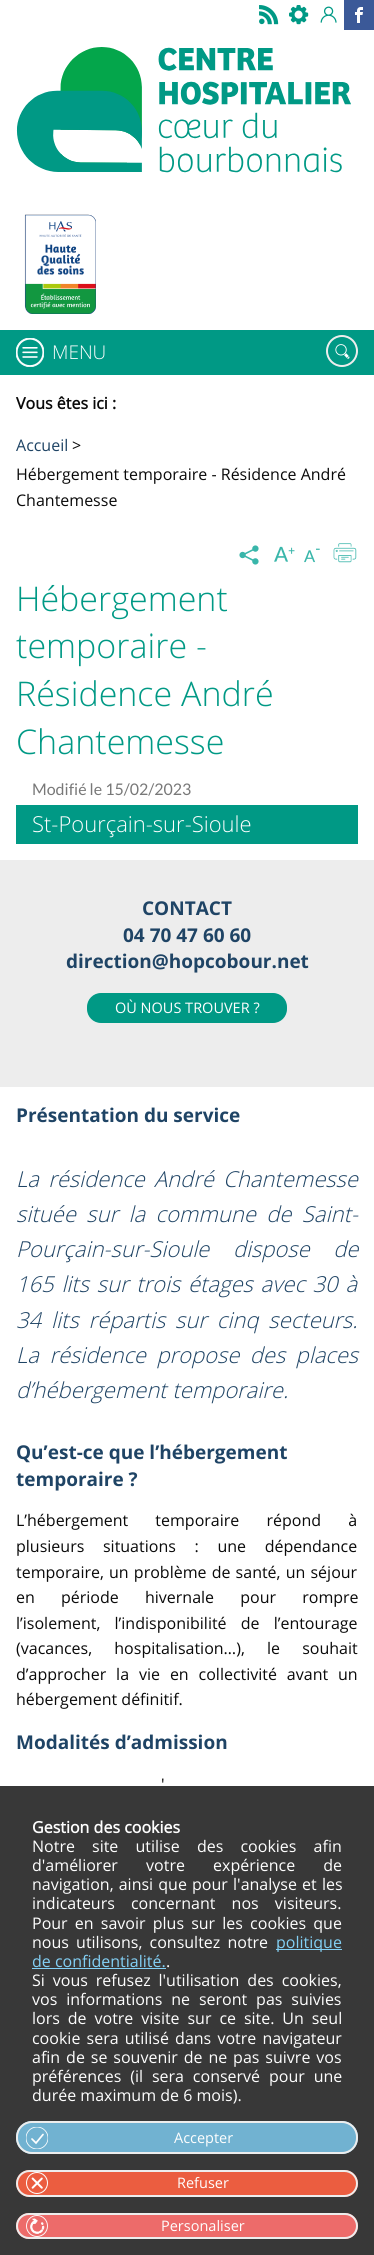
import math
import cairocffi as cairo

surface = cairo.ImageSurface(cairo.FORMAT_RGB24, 374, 2255)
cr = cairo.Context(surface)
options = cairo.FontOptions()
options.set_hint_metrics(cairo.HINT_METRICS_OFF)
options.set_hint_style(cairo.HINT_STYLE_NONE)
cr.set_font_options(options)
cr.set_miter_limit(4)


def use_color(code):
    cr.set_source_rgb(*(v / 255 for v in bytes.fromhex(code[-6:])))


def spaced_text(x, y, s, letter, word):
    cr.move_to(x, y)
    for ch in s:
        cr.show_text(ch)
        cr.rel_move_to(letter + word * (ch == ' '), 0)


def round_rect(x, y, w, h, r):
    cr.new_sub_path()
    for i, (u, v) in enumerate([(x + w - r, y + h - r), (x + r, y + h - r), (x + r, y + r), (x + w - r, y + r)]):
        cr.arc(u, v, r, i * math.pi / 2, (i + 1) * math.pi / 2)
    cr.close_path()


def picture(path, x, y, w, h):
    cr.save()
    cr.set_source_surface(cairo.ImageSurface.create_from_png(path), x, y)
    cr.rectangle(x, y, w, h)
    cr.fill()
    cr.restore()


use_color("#ffffff")
cr.paint()
picture("img1.png", 259, 5, 20, 20)
picture("img2.png", 289, 5, 20, 20)
picture("img3.png", 320, 6, 17, 17)
use_color("#3b5998")
cr.rectangle(344, 0, 30, 30)
cr.fill()
picture("img4.png", 355, 7, 8, 16)
picture("img5.png", 16, 47, 335, 126)
picture("img6.png", 24, 214, 72, 100)
use_color("#009985")
cr.rectangle(0, 330, 374, 45)
cr.fill()
picture("img7.png", 16, 338, 28, 29)
cr.select_font_face("Open Sans Light")
cr.set_font_size(19)
use_color("#fefefe")
cr.move_to(52, 359)
cr.show_text("MENU")
picture("img8.png", 335, 344, 15, 15)
cr.arc(342, 351, 15, 0, 2 * math.pi)
use_color("#ededed")
cr.stroke()
cr.select_font_face("Open Sans", cairo.FONT_SLANT_NORMAL, cairo.FONT_WEIGHT_BOLD)
cr.set_font_size(16)
use_color("#0a0a0a")
cr.move_to(16, 409)
cr.show_text("Vous êtes ici :")
cr.select_font_face("Open Sans")
use_color("#1f4465")
cr.move_to(16, 451)
cr.show_text("Accueil")
use_color("#0a0a0a")
cr.move_to(72, 451)
cr.show_text(">")
cr.move_to(16, 480)
cr.show_text("Hébergement temporaire - Résidence André")
cr.move_to(16, 506)
cr.show_text("Chantemesse")
picture("img9.png", 239, 545, 20, 20)
picture("img10.png", 274, 546, 21, 16)
picture("img11.png", 304, 548, 16, 15)
picture("img12.png", 333, 543, 24, 20)
cr.select_font_face("Open Sans Light")
cr.set_font_size(34)
use_color("#009985")
cr.move_to(16, 611)
cr.show_text("Hébergement")
cr.move_to(16, 658)
cr.show_text("temporaire -")
cr.move_to(16, 706)
cr.show_text("Résidence André")
cr.move_to(16, 754)
cr.show_text("Chantemesse")
cr.select_font_face("Lato")
cr.set_font_size(16)
use_color("#787878")
cr.move_to(32, 795)
cr.show_text("Modifié le 15/02/2023")
use_color("#009985")
cr.rectangle(16, 805, 342, 39)
cr.fill()
cr.select_font_face("Open Sans Light")
cr.set_font_size(22)
use_color("#fefefe")
cr.move_to(32, 832)
cr.show_text("St-Pourçain-sur-Sioule")
use_color("#ededed")
cr.rectangle(0, 860, 374, 227)
cr.fill()
cr.select_font_face("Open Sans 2", cairo.FONT_SLANT_NORMAL, cairo.FONT_WEIGHT_BOLD)
cr.set_font_size(19)
use_color("#1f4465")
cr.move_to(142, 915)
cr.show_text("CONTACT")
cr.move_to(123, 942)
cr.show_text("04 70 47 60 60")
cr.move_to(66, 968)
cr.show_text("direction@hopcobour.net")
use_color("#009985")
round_rect(86, 992, 202, 32, 15)
cr.fill_preserve()
use_color("#ededed")
cr.stroke()
cr.select_font_face("Open Sans")
cr.set_font_size(14.5)
use_color("#fefefe")
cr.move_to(115, 1013)
cr.show_text("OÙ NOUS TROUVER ?")
cr.select_font_face("Open Sans 2", cairo.FONT_SLANT_NORMAL, cairo.FONT_WEIGHT_BOLD)
cr.set_font_size(19)
use_color("#1f4465")
cr.move_to(16, 1122)
cr.show_text("Présentation du service")
cr.select_font_face("Open Sans Light", cairo.FONT_SLANT_ITALIC)
cr.set_font_size(22)
spaced_text(16, 1187, "La résidence André Chantemesse", 0, 3.5)
spaced_text(16, 1222, "située sur la commune de Saint-", 0, 4.75)
spaced_text(16, 1257, "Pourçain-sur-Sioule dispose de", 0, 18)
spaced_text(16, 1292, "165 lits sur trois étages avec 30 à", 0, 2)
spaced_text(16, 1328, "34 lits répartis sur cinq secteurs.", 0, 4.25)
spaced_text(16, 1363, "La résidence propose des places", 0, 4.75)
cr.move_to(16, 1398)
cr.show_text("d’hébergement temporaire.")
cr.select_font_face("Open Sans 2", cairo.FONT_SLANT_NORMAL, cairo.FONT_WEIGHT_BOLD)
cr.set_font_size(19)
cr.move_to(16, 1459)
cr.show_text("Qu’est-ce que l’hébergement")
cr.move_to(16, 1486)
cr.show_text("temporaire ?")
cr.select_font_face("Open Sans")
cr.set_font_size(16)
use_color("#0a0a0a")
spaced_text(16, 1526, "L’hébergement temporaire répond à", 0, 23)
spaced_text(16, 1552, "plusieurs situations : une dépendance", 0, 14.5)
spaced_text(16, 1578, "temporaire, un problème de santé, un séjour", 0, 1)
spaced_text(16, 1603, "en période hivernale pour rompre", 0, 22)
spaced_text(16, 1629, "l’isolement, l’indisponibilité de l’entourage", 0, 10)
spaced_text(16, 1654, "(vacances, hospitalisation…), le souhait", 0, 18)
spaced_text(16, 1680, "d’approcher la vie en collectivité avant un", 0, 5.75)
cr.move_to(16, 1705)
cr.show_text("hébergement définitif.")
cr.select_font_face("Open Sans 2", cairo.FONT_SLANT_NORMAL, cairo.FONT_WEIGHT_BOLD)
cr.set_font_size(19)
use_color("#1f4465")
cr.move_to(16, 1749)
cr.show_text("Modalités d’admission")
cr.select_font_face("Open Sans")
cr.set_font_size(16)
use_color("#0a0a0a")
spaced_text(161, 1790, "'", 0, 3)
use_color("#383838")
cr.rectangle(0, 1786, 374, 469)
cr.fill()
cr.select_font_face("Open Sans", cairo.FONT_SLANT_NORMAL, cairo.FONT_WEIGHT_BOLD)
use_color("#fefefe")
cr.move_to(32, 1833)
cr.show_text("Gestion des cookies")
cr.select_font_face("Open Sans")
spaced_text(32, 1852, "Notre site utilise des cookies afin", 0, 13)
spaced_text(32, 1871, "d'améliorer votre expérience de", 0, 24)
spaced_text(32, 1890, "navigation, ainsi que pour l'analyse et les", 0, 1)
spaced_text(32, 1909, "indicateurs concernant nos visiteurs.", 0, 12)
spaced_text(32, 1929, "Pour en savoir plus sur les cookies que", 0, 3)
spaced_text(32, 1948, "nous utilisons, consultez notre", 0, 3)
use_color("#83d0f5")
cr.rectangle(276, 1949, 66, 1)
cr.fill()
cr.move_to(276, 1948)
cr.show_text("politique")
cr.move_to(32, 1967)
cr.show_text("de confidentialité.")
cr.rectangle(32, 1968, 134, 1)
cr.fill()
use_color("#fefefe")
cr.move_to(166, 1967)
cr.show_text(".")
spaced_text(32, 1986, "Si vous refusez l'utilisation des cookies,", 0, 3.75)
spaced_text(32, 2005, "vos informations ne seront pas suivies", 0, 4.75)
spaced_text(32, 2024, "lors de votre visite sur ce site. Un seul", 0, 3.75)
spaced_text(32, 2044, "cookie sera utilisé dans votre navigateur", 0, 2)
spaced_text(32, 2063, "afin de se souvenir de ne pas suivre vos", 0, 1.75)
spaced_text(32, 2082, "préférences (il sera conservé pour une", 0, 4.75)
cr.move_to(32, 2101)
cr.show_text("durée maximum de 6 mois).")
use_color("#71b2d1")
round_rect(16, 2121, 342, 33, 16)
cr.fill()
cr.new_path()
cr.move_to(32, 2139)
cr.line_to(36, 2143)
cr.line_to(43, 2134.5)
use_color("#ffffff")
cr.set_line_width(1.7)
cr.set_line_cap(cairo.LINE_CAP_ROUND)
cr.stroke()
cr.save()
cr.rectangle(26, 2127, 22, 22)
cr.clip()
cr.arc(37, 2138, 11, 0, 2 * math.pi)
cr.set_line_width(0.8)
cr.set_line_cap(cairo.LINE_CAP_BUTT)
cr.stroke()
cr.restore()
round_rect(17, 2122, 340, 31, 15)
use_color("#ededed")
cr.set_line_width(2)
cr.set_line_cap(cairo.LINE_CAP_BUTT)
cr.stroke()
cr.set_font_size(14.5)
use_color("#fefefe")
cr.move_to(174, 2143)
cr.show_text("Accepter")
use_color("#eb5d40")
round_rect(16, 2170, 342, 27, 13.5)
cr.fill()
picture("img13.png", 26, 2172, 22, 22)
round_rect(17, 2171, 340, 25, 12.5)
use_color("#ededed")
cr.stroke()
use_color("#fefefe")
cr.move_to(177, 2188)
cr.show_text("Refuser")
use_color("#ed6b6a")
round_rect(16, 2213, 342, 26, 13)
cr.fill()
picture("img14.png", 26, 2215, 22, 22)
round_rect(17, 2214, 340, 24, 12)
use_color("#ededed")
cr.stroke()
use_color("#fefefe")
cr.move_to(161, 2231)
cr.show_text("Personaliser")
surface.write_to_png("result.png")
